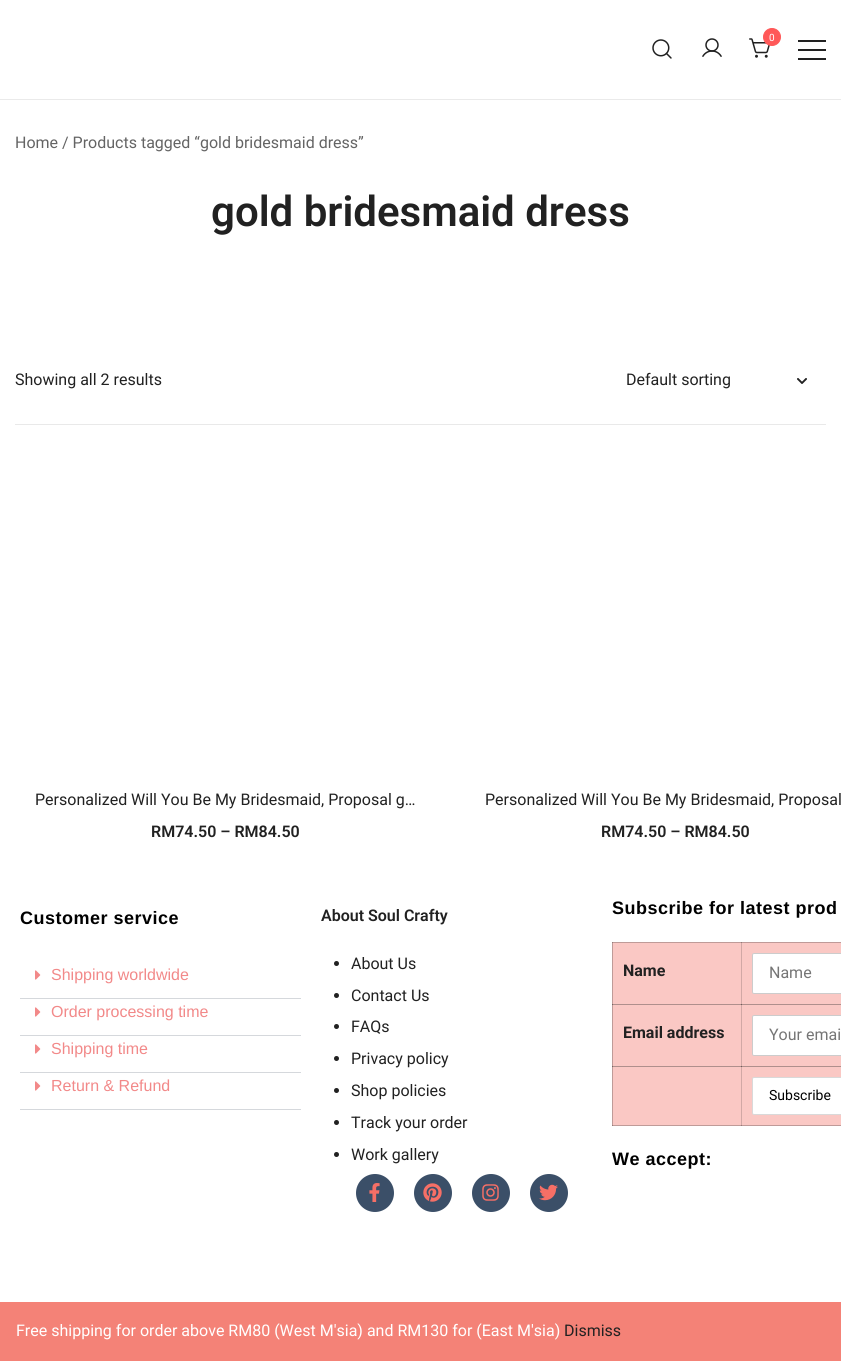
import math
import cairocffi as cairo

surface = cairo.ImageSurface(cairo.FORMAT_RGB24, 841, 1361)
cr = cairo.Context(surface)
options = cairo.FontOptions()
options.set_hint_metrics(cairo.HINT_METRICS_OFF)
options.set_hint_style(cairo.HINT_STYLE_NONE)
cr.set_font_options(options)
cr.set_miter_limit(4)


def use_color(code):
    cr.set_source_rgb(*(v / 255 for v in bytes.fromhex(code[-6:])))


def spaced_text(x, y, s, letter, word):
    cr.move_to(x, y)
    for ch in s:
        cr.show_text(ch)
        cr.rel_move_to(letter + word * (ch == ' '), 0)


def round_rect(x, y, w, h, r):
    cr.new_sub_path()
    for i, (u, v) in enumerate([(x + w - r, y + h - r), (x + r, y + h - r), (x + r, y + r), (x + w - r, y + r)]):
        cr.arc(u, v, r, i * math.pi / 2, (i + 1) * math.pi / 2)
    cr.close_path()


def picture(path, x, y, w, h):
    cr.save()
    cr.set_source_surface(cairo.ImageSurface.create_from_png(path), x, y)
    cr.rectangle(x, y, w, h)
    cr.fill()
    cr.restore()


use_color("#ffffff")
cr.paint()
use_color("#eaeaea")
cr.rectangle(0, 99, 841, 1)
cr.fill()
picture("img1.png", 702, 38, 20, 19)
picture("img2.png", 749, 38, 21, 20)
use_color("#ff5858")
cr.arc(772, 37, 8.5, 0, 2 * math.pi)
cr.fill_preserve()
cr.set_line_width(1)
cr.stroke()
cr.select_font_face("Roboto")
cr.set_font_size(10)
use_color("#ffffff")
cr.move_to(769, 41)
cr.show_text("0")
picture("img3.png", 652, 39, 20, 20)
use_color("#212121")
cr.rectangle(798, 40, 28, 2)
cr.fill()
cr.rectangle(798, 49, 28, 2)
cr.fill()
cr.rectangle(798, 58, 28, 2)
cr.fill()
cr.set_font_size(16)
use_color("#646464")
cr.move_to(15, 148)
cr.show_text("Home / Products tagged “gold bridesmaid dress”")
cr.select_font_face("Roboto SemiBold")
cr.set_font_size(42)
use_color("#212121")
cr.move_to(211, 226)
cr.show_text("gold bridesmaid dress")
use_color("#e9e9e9")
cr.rectangle(15, 424, 811, 1)
cr.fill()
cr.select_font_face("Roboto")
cr.set_font_size(16)
use_color("#212121")
cr.move_to(15, 385)
cr.show_text("Showing all 2 results")
picture("img4.png", 797, 378, 10, 6)
cr.move_to(626, 385)
cr.show_text("Default sorting")
cr.move_to(35, 805)
cr.show_text("Personalized Will You Be My Bridesmaid, Proposal g…")
cr.select_font_face("Roboto SemiBold")
cr.move_to(151, 837)
cr.show_text("RM74.50 – RM84.50")
cr.select_font_face("Roboto")
cr.move_to(485, 805)
cr.show_text("Personalized Will You Be My Bridesmaid, Proposal")
cr.select_font_face("Roboto SemiBold")
cr.move_to(601, 837)
cr.show_text("RM74.50 – RM84.50")
cr.select_font_face("Liberation Sans", cairo.FONT_SLANT_NORMAL, cairo.FONT_WEIGHT_BOLD)
cr.set_font_size(18)
use_color("#000000")
spaced_text(20, 924, "Customer service", 0.5, 0)
use_color("#d5d8dc")
cr.rectangle(20, 998, 281, 1)
cr.fill()
picture("img5.png", 35, 970, 6, 10)
cr.select_font_face("Liberation Sans")
cr.set_font_size(16)
use_color("#f28989")
cr.move_to(51, 980)
cr.show_text("Shipping worldwide")
use_color("#d5d8dc")
cr.rectangle(20, 1035, 281, 1)
cr.fill()
picture("img5.png", 35, 1007, 6, 10)
use_color("#f28989")
cr.move_to(51, 1017)
cr.show_text("Order processing time")
use_color("#d5d8dc")
cr.rectangle(20, 1072, 281, 1)
cr.fill()
picture("img5.png", 35, 1044, 6, 10)
use_color("#f28989")
cr.move_to(51, 1054)
cr.show_text("Shipping time")
use_color("#d5d8dc")
cr.rectangle(20, 1109, 281, 1)
cr.fill()
picture("img5.png", 35, 1081, 6, 10)
use_color("#f28989")
cr.move_to(51, 1091)
cr.show_text("Return & Refund")
cr.select_font_face("Roboto SemiBold")
use_color("#212121")
cr.move_to(321, 921)
cr.show_text("About Soul Crafty")
cr.new_path()
cr.arc(336.5, 963.5, 2.5, 0, 2 * math.pi)
cr.fill()
cr.select_font_face("Roboto")
cr.move_to(351, 969)
cr.show_text("About Us")
cr.new_path()
cr.arc(336.5, 995.5, 2.5, 0, 2 * math.pi)
cr.fill()
cr.move_to(351, 1001)
cr.show_text("Contact Us")
cr.new_path()
cr.arc(336.5, 1026.5, 2.5, 0, 2 * math.pi)
cr.fill()
cr.move_to(351, 1032)
cr.show_text("FAQs")
cr.new_path()
cr.arc(336.5, 1058.5, 2.5, 0, 2 * math.pi)
cr.fill()
cr.move_to(351, 1064)
cr.show_text("Privacy policy")
cr.new_path()
cr.arc(336.5, 1090.5, 2.5, 0, 2 * math.pi)
cr.fill()
cr.move_to(351, 1096)
cr.show_text("Shop policies")
cr.new_path()
cr.arc(336.5, 1122.5, 2.5, 0, 2 * math.pi)
cr.fill()
cr.move_to(351, 1128)
cr.show_text("Track your order")
cr.new_path()
cr.arc(336.5, 1154.5, 2.5, 0, 2 * math.pi)
cr.fill()
cr.move_to(351, 1160)
cr.show_text("Work gallery")
use_color("#3b4f68")
cr.new_path()
cr.arc(375, 1193, 19, 0, 2 * math.pi)
cr.fill()
picture("img6.png", 369, 1183, 11, 19)
cr.arc(433, 1193, 19, 0, 2 * math.pi)
cr.fill()
picture("img7.png", 423, 1183, 19, 19)
cr.arc(491, 1193, 19, 0, 2 * math.pi)
cr.fill()
picture("img8.png", 482, 1184, 17, 17)
cr.arc(549, 1193, 19, 0, 2 * math.pi)
cr.fill()
picture("img9.png", 539, 1184, 19, 17)
cr.select_font_face("Liberation Sans", cairo.FONT_SLANT_NORMAL, cairo.FONT_WEIGHT_BOLD)
cr.set_font_size(18)
use_color("#000000")
spaced_text(612, 914, "Subscribe for latest prod", 0.5, 0)
use_color("#fac8c4")
cr.rectangle(613, 943, 228, 182)
cr.fill()
use_color("#d1a8a5")
cr.rectangle(741, 942, 1, 184)
cr.fill()
use_color("#af8f8c")
cr.rectangle(612, 1004, 229, 1)
cr.fill()
cr.rectangle(612, 1066, 229, 1)
cr.fill()
use_color("#bf9b98")
cr.rectangle(612, 942, 1, 184)
cr.fill()
use_color("#76625f")
cr.rectangle(612, 1004, 1, 1)
cr.fill()
cr.rectangle(612, 1066, 1, 1)
cr.fill()
use_color("#bf9b98")
cr.rectangle(612, 942, 130, 1)
cr.fill()
use_color("#947a77")
cr.rectangle(612, 942, 1, 1)
cr.fill()
use_color("#bf9b98")
cr.rectangle(612, 1125, 130, 1)
cr.fill()
use_color("#947a77")
cr.rectangle(612, 1125, 1, 1)
cr.fill()
cr.select_font_face("Roboto", cairo.FONT_SLANT_NORMAL, cairo.FONT_WEIGHT_BOLD)
cr.set_font_size(16)
use_color("#212121")
cr.move_to(623, 976)
cr.show_text("Name")
use_color("#bf9a98")
cr.rectangle(741, 942, 100, 1)
cr.fill()
use_color("#947977")
cr.rectangle(741, 942, 1, 1)
cr.fill()
use_color("#ffffff")
round_rect(752.5, 953.5, 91, 40, 1.5)
cr.fill_preserve()
use_color("#cccccc")
cr.stroke()
cr.select_font_face("Roboto")
use_color("#757575")
cr.move_to(769, 978)
cr.show_text("Name")
cr.select_font_face("Roboto", cairo.FONT_SLANT_NORMAL, cairo.FONT_WEIGHT_BOLD)
use_color("#212121")
cr.move_to(623, 1038)
cr.show_text("Email address")
use_color("#6e5c59")
cr.rectangle(741, 1004, 1, 1)
cr.fill()
use_color("#ffffff")
round_rect(752.5, 1015.5, 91, 40, 1.5)
cr.fill_preserve()
use_color("#cccccc")
cr.stroke()
cr.select_font_face("Roboto")
use_color("#757575")
cr.move_to(769, 1040)
cr.show_text("Your emai")
use_color("#6e5c59")
cr.rectangle(741, 1066, 1, 1)
cr.fill()
use_color("#bf9a98")
cr.rectangle(741, 1125, 100, 1)
cr.fill()
use_color("#947977")
cr.rectangle(741, 1125, 1, 1)
cr.fill()
use_color("#ffffff")
round_rect(752.5, 1077.5, 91, 37, 1.5)
cr.fill_preserve()
use_color("#d9d9d9")
cr.stroke()
cr.set_font_size(14)
use_color("#000000")
cr.move_to(769, 1100)
cr.show_text("Subscribe")
cr.select_font_face("Liberation Sans", cairo.FONT_SLANT_NORMAL, cairo.FONT_WEIGHT_BOLD)
cr.set_font_size(18)
spaced_text(612, 1165, "We accept:", 0.5, 0)
use_color("#f48277")
cr.rectangle(0, 1302, 841, 59)
cr.fill()
cr.select_font_face("Roboto")
cr.set_font_size(16)
use_color("#ffffff")
cr.move_to(16, 1336)
cr.show_text("Free shipping for order above RM80 (West M'sia) and RM130 for (East M'sia)")
use_color("#212121")
cr.move_to(564, 1336)
cr.show_text("Dismiss")
surface.write_to_png("result.png")
